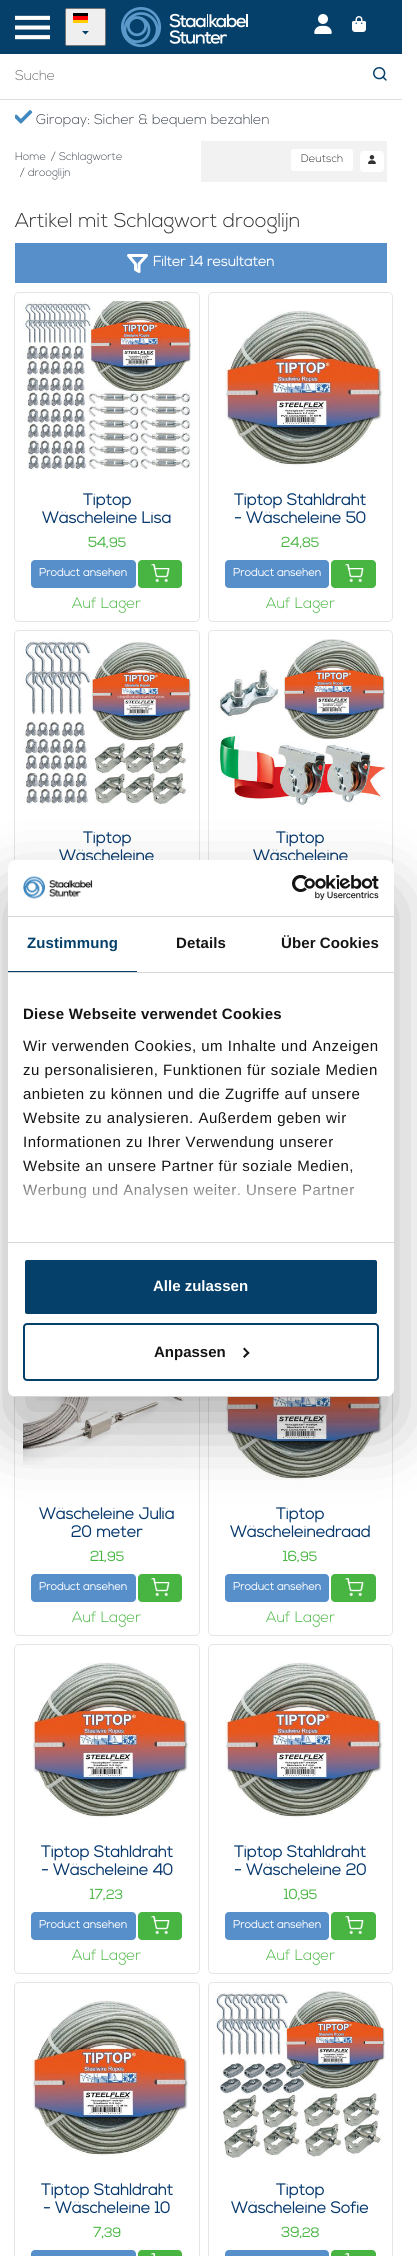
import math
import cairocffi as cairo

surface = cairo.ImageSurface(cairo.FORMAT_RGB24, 417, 2256)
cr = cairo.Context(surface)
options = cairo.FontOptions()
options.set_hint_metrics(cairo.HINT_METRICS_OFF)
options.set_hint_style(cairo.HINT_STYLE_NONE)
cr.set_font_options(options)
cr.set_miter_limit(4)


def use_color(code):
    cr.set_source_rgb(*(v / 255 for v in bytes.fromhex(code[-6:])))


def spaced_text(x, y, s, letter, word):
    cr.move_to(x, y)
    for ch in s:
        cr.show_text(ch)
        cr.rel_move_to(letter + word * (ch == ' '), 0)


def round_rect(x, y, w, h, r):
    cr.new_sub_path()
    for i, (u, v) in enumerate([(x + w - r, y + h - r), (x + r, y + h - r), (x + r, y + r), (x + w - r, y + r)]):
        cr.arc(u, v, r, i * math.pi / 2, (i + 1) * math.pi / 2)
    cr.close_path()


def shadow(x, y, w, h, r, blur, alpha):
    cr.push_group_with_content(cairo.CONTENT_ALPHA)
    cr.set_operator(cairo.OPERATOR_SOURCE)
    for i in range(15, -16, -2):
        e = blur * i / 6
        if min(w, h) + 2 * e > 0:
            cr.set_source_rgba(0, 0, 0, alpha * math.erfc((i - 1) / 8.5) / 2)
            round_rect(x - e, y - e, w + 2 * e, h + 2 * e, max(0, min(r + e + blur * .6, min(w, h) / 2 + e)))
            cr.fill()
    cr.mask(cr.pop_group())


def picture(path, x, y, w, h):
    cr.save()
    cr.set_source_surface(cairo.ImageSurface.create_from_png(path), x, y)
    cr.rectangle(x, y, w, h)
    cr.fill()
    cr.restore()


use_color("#ffffff")
cr.paint()
use_color("#04406a")
cr.rectangle(0, 0, 402, 54)
cr.fill()
picture("img1.png", 15, 15, 35, 25)
use_color("#efefef")
round_rect(65.5, 8.5, 40, 37, 1.5)
cr.fill_preserve()
use_color("#767676")
cr.set_line_width(1)
cr.stroke()
use_color("#ffcc00")
cr.rectangle(73, 20, 15, 3)
cr.fill()
use_color("#000001")
cr.rectangle(73, 13, 15, 3)
cr.fill()
use_color("#ff0000")
cr.rectangle(73, 16, 15, 4)
cr.fill()
picture("img2.png", 82, 31, 7, 4)
picture("img3.png", 121, 7, 127, 40)
picture("img4.png", 314, 14, 18, 20)
picture("img5.png", 352, 16, 14, 16)
use_color("#dddddd")
cr.rectangle(0, 99, 402, 1)
cr.fill()
cr.select_font_face("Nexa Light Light")
cr.set_font_size(14)
use_color("#757575")
cr.move_to(15, 80)
cr.show_text("Suche")
picture("img6.png", 373, 67, 14, 14)
picture("img7.png", 15, 110, 18, 14)
use_color("#434a54")
cr.move_to(36, 124)
cr.show_text("Giropay: Sicher & bequem bezahlen")
cr.set_font_size(11)
cr.move_to(15, 160)
cr.show_text("Home")
use_color("#333333")
cr.move_to(51, 160)
cr.show_text("/")
use_color("#434a54")
cr.move_to(59, 160)
cr.show_text("Schlagworte")
use_color("#333333")
cr.move_to(20, 176)
cr.show_text("/")
use_color("#434a54")
cr.move_to(28, 176)
cr.show_text("drooglijn")
use_color("#f2f2f2")
cr.rectangle(201, 141, 186, 41)
cr.fill()
use_color("#ffffff")
round_rect(291, 149, 62, 22, 3)
cr.fill()
use_color("#333333")
cr.move_to(301, 162)
cr.show_text("Deutsch")
use_color("#ffffff")
round_rect(360, 151, 24, 21, 4)
cr.fill()
picture("img8.png", 368, 155, 8, 9)
cr.set_font_size(20)
use_color("#333333")
cr.move_to(15, 227)
cr.show_text("Artikel mit Schlagwort drooglijn")
use_color("#578fcb")
cr.rectangle(15, 243, 372, 40)
cr.fill()
cr.new_path()
cr.move_to(146.5, 255.5)
cr.line_to(128.5, 255.5)
cr.line_to(135.5, 264)
cr.line_to(135.5, 269.5)
cr.line_to(139, 271.5)
cr.line_to(139, 264)
cr.close_path()
use_color("#ffffff")
cr.set_line_width(3)
cr.set_line_cap(cairo.LINE_CAP_ROUND)
cr.set_line_join(cairo.LINE_JOIN_ROUND)
cr.stroke()
cr.select_font_face("Nexa Light", cairo.FONT_SLANT_NORMAL, cairo.FONT_WEIGHT_BOLD)
cr.set_font_size(14)
cr.move_to(153, 266)
cr.show_text("Filter 14 resultaten")
round_rect(14.5, 292.5, 185, 329, 4.5)
use_color("#e5e5e5")
cr.set_line_width(1)
cr.set_line_cap(cairo.LINE_CAP_BUTT)
cr.set_line_join(cairo.LINE_JOIN_MITER)
cr.stroke()
use_color("#ffffff")
round_rect(15, 293, 184, 328, 4)
cr.fill()
picture("img9.png", 23, 301, 168, 168)
cr.set_font_size(16)
use_color("#06386d")
cr.move_to(83, 505)
cr.show_text("Tiptop")
cr.move_to(42, 523)
cr.show_text("Wäscheleine Lisa")
cr.set_font_size(14)
use_color("#48b542")
cr.move_to(88, 547)
cr.show_text("54,")
cr.set_font_size(13)
cr.move_to(109, 547)
cr.show_text("95")
use_color("#578fcb")
round_rect(31, 560, 105, 28, 4)
cr.fill()
cr.set_font_size(11)
use_color("#ffffff")
cr.move_to(39, 576)
cr.show_text("Product ansehen")
use_color("#48b542")
round_rect(138, 560, 44, 28, 4)
cr.fill()
picture("img10.png", 150, 564, 20, 18)
cr.select_font_face("Nexa Light Light")
cr.set_font_size(15)
cr.move_to(72, 608)
cr.show_text("Auf Lager")
round_rect(208.5, 292.5, 184, 329, 4.5)
use_color("#e5e5e5")
cr.stroke()
use_color("#ffffff")
round_rect(209, 293, 183, 328, 4)
cr.fill()
picture("img11.png", 225, 310, 158, 157)
cr.select_font_face("Nexa Light", cairo.FONT_SLANT_NORMAL, cairo.FONT_WEIGHT_BOLD)
cr.set_font_size(16)
use_color("#06386d")
cr.move_to(234, 505)
cr.show_text("Tiptop Stahldraht")
cr.move_to(234, 523)
cr.show_text("- Wäscheleine 50")
cr.set_font_size(14)
use_color("#48b542")
cr.move_to(281, 547)
cr.show_text("24,")
cr.set_font_size(13)
cr.move_to(302, 547)
cr.show_text("85")
use_color("#578fcb")
round_rect(225, 560, 104, 28, 4)
cr.fill()
cr.set_font_size(11)
use_color("#ffffff")
cr.move_to(233, 576)
cr.show_text("Product ansehen")
use_color("#48b542")
round_rect(331, 560, 45, 28, 4)
cr.fill()
picture("img12.png", 344, 564, 20, 18)
cr.select_font_face("Nexa Light Light")
cr.set_font_size(15)
cr.move_to(266, 608)
cr.show_text("Auf Lager")
round_rect(14.5, 630.5, 185, 329, 4.5)
use_color("#e5e5e5")
cr.stroke()
use_color("#ffffff")
round_rect(15, 631, 184, 328, 4)
cr.fill()
picture("img13.png", 23, 639, 168, 166)
cr.select_font_face("Nexa Light", cairo.FONT_SLANT_NORMAL, cairo.FONT_WEIGHT_BOLD)
cr.set_font_size(16)
use_color("#06386d")
cr.move_to(83, 843)
cr.show_text("Tiptop")
cr.move_to(59, 861)
cr.show_text("Wäscheleine")
round_rect(208.5, 630.5, 184, 329, 4.5)
use_color("#e5e5e5")
cr.stroke()
use_color("#ffffff")
round_rect(209, 631, 183, 328, 4)
cr.fill()
picture("img14.png", 216, 639, 169, 166)
use_color("#06386d")
cr.move_to(276, 843)
cr.show_text("Tiptop")
cr.move_to(253, 861)
cr.show_text("Wäscheleine")
round_rect(14.5, 1306.5, 185, 329, 4.5)
use_color("#e5e5e5")
cr.stroke()
use_color("#ffffff")
round_rect(15, 1307, 184, 328, 4)
cr.fill()
picture("img15.png", 23, 1397, 161, 68)
use_color("#06386d")
cr.move_to(39, 1519)
cr.show_text("Wäscheleine Julia")
cr.move_to(71, 1537)
cr.show_text("20 meter")
cr.set_font_size(14)
use_color("#48b542")
cr.move_to(90, 1561)
cr.show_text("21,")
cr.set_font_size(13)
cr.move_to(107, 1561)
cr.show_text("95")
use_color("#578fcb")
round_rect(31, 1574, 105, 28, 4)
cr.fill()
cr.set_font_size(11)
use_color("#ffffff")
cr.move_to(39, 1590)
cr.show_text("Product ansehen")
use_color("#48b542")
round_rect(138, 1574, 44, 28, 4)
cr.fill()
picture("img10.png", 150, 1578, 20, 18)
cr.select_font_face("Nexa Light Light")
cr.set_font_size(15)
cr.move_to(72, 1622)
cr.show_text("Auf Lager")
round_rect(208.5, 1306.5, 184, 329, 4.5)
use_color("#e5e5e5")
cr.stroke()
use_color("#ffffff")
round_rect(209, 1307, 183, 328, 4)
cr.fill()
picture("img16.png", 225, 1397, 158, 84)
cr.select_font_face("Nexa Light", cairo.FONT_SLANT_NORMAL, cairo.FONT_WEIGHT_BOLD)
cr.set_font_size(16)
use_color("#06386d")
cr.move_to(276, 1519)
cr.show_text("Tiptop")
cr.move_to(230, 1537)
cr.show_text("Wäscheleinedraad")
cr.set_font_size(14)
use_color("#48b542")
cr.move_to(283, 1561)
cr.show_text("16,")
cr.set_font_size(13)
cr.move_to(300, 1561)
cr.show_text("95")
use_color("#578fcb")
round_rect(225, 1574, 104, 28, 4)
cr.fill()
cr.set_font_size(11)
use_color("#ffffff")
cr.move_to(233, 1590)
cr.show_text("Product ansehen")
use_color("#48b542")
round_rect(331, 1574, 45, 28, 4)
cr.fill()
picture("img12.png", 344, 1578, 20, 18)
cr.select_font_face("Nexa Light Light")
cr.set_font_size(15)
cr.move_to(266, 1622)
cr.show_text("Auf Lager")
round_rect(14.5, 1644.5, 185, 329, 4.5)
use_color("#e5e5e5")
cr.stroke()
use_color("#ffffff")
round_rect(15, 1645, 184, 328, 4)
cr.fill()
picture("img17.png", 32, 1662, 157, 156)
cr.select_font_face("Nexa Light", cairo.FONT_SLANT_NORMAL, cairo.FONT_WEIGHT_BOLD)
cr.set_font_size(16)
use_color("#06386d")
cr.move_to(41, 1857)
cr.show_text("Tiptop Stahldraht")
cr.move_to(41, 1875)
cr.show_text("- Wäscheleine 40")
cr.set_font_size(14)
use_color("#48b542")
cr.move_to(90, 1899)
cr.show_text("17,")
cr.set_font_size(13)
cr.move_to(106, 1899)
cr.show_text("23")
use_color("#578fcb")
round_rect(31, 1912, 105, 28, 4)
cr.fill()
cr.set_font_size(11)
use_color("#ffffff")
cr.move_to(39, 1928)
cr.show_text("Product ansehen")
use_color("#48b542")
round_rect(138, 1912, 44, 28, 4)
cr.fill()
picture("img10.png", 150, 1916, 20, 18)
cr.select_font_face("Nexa Light Light")
cr.set_font_size(15)
cr.move_to(72, 1960)
cr.show_text("Auf Lager")
round_rect(208.5, 1644.5, 184, 329, 4.5)
use_color("#e5e5e5")
cr.stroke()
use_color("#ffffff")
round_rect(209, 1645, 183, 328, 4)
cr.fill()
picture("img18.png", 225, 1662, 158, 157)
cr.select_font_face("Nexa Light", cairo.FONT_SLANT_NORMAL, cairo.FONT_WEIGHT_BOLD)
cr.set_font_size(16)
use_color("#06386d")
cr.move_to(234, 1857)
cr.show_text("Tiptop Stahldraht")
cr.move_to(234, 1875)
cr.show_text("- Wäscheleine 20")
cr.set_font_size(14)
use_color("#48b542")
cr.move_to(284, 1899)
cr.show_text("10,")
cr.set_font_size(13)
cr.move_to(300, 1899)
cr.show_text("95")
use_color("#578fcb")
round_rect(225, 1912, 104, 28, 4)
cr.fill()
cr.set_font_size(11)
use_color("#ffffff")
cr.move_to(233, 1928)
cr.show_text("Product ansehen")
use_color("#48b542")
round_rect(331, 1912, 45, 28, 4)
cr.fill()
picture("img12.png", 344, 1916, 20, 18)
cr.select_font_face("Nexa Light Light")
cr.set_font_size(15)
cr.move_to(266, 1960)
cr.show_text("Auf Lager")
round_rect(14.5, 1982.5, 185, 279, 4.5)
use_color("#e5e5e5")
cr.stroke()
use_color("#ffffff")
round_rect(15, 1983, 184, 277, 4)
cr.fill()
picture("img19.png", 32, 2000, 157, 156)
cr.select_font_face("Nexa Light", cairo.FONT_SLANT_NORMAL, cairo.FONT_WEIGHT_BOLD)
cr.set_font_size(16)
use_color("#06386d")
cr.move_to(41, 2195)
cr.show_text("Tiptop Stahldraht")
cr.move_to(43, 2213)
cr.show_text("- Wäscheleine 10")
cr.set_font_size(14)
use_color("#48b542")
cr.move_to(93, 2237)
cr.show_text("7,")
cr.set_font_size(13)
cr.move_to(104, 2237)
cr.show_text("39")
use_color("#578fcb")
round_rect(31, 2250, 105, 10, 4)
cr.fill()
use_color("#48b542")
round_rect(138, 2250, 44, 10, 4)
cr.fill()
picture("img20.png", 150, 2253, 6, 3)
round_rect(208.5, 1982.5, 184, 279, 4.5)
use_color("#e5e5e5")
cr.stroke()
use_color("#ffffff")
round_rect(209, 1983, 183, 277, 4)
cr.fill()
picture("img21.png", 216, 1991, 169, 167)
cr.set_font_size(16)
use_color("#06386d")
cr.move_to(276, 2195)
cr.show_text("Tiptop")
cr.move_to(231, 2213)
cr.show_text("Wäscheleine Sofie")
cr.set_font_size(14)
use_color("#48b542")
cr.move_to(281, 2237)
cr.show_text("39,")
cr.set_font_size(13)
cr.move_to(302, 2237)
cr.show_text("28")
use_color("#578fcb")
round_rect(225, 2250, 104, 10, 4)
cr.fill()
use_color("#48b542")
round_rect(331, 2250, 45, 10, 4)
cr.fill()
picture("img20.png", 344, 2253, 6, 3)
use_color("#000000")
shadow(8, 892, 386, 537, 8, 34, 0.3)
use_color("#ffffff")
round_rect(8, 860, 386, 537, 8)
cr.fill()
use_color("#d6d6d6")
cr.rectangle(8, 916, 386, 1)
cr.fill()
picture("img22.png", 23, 876, 70, 23)
picture("img23.png", 292, 875, 87, 25)
cr.rectangle(8, 972, 386, 1)
cr.fill()
use_color("#05406a")
cr.rectangle(8, 971, 129, 1)
cr.fill()
cr.select_font_face("Liberation Sans", cairo.FONT_SLANT_NORMAL, cairo.FONT_WEIGHT_BOLD)
cr.set_font_size(15)
spaced_text(27, 948, "Zustimmung", 0.1, 0)
use_color("#141414")
spaced_text(176, 948, "Details", 0.1, 0)
spaced_text(281, 948, "Über Cookies", 0.1, 0)
use_color("#d6d6d6")
cr.rectangle(8, 1242, 386, 1)
cr.fill()
use_color("#141414")
spaced_text(23, 1019, "Diese Webseite verwendet Cookies", 0.25, 0)
cr.select_font_face("Liberation Sans")
spaced_text(23, 1051, "Wir verwenden Cookies, um Inhalte und Anzeigen", 0.5, 0)
spaced_text(23, 1075, "zu personalisieren, Funktionen für soziale Medien", 0.5, 0)
spaced_text(23, 1099, "anbieten zu können und die Zugriffe auf unsere", 0.5, 0)
spaced_text(23, 1123, "Website zu analysieren. Außerdem geben wir", 0.5, 0)
spaced_text(23, 1147, "Informationen zu Ihrer Verwendung unserer", 0.5, 0)
spaced_text(23, 1171, "Website an unsere Partner für soziale Medien,", 0.5, 0)
spaced_text(23, 1195, "Werbung und Analysen weiter. Unsere Partner", 0.5, 0)
gradient = cairo.LinearGradient(195, 1242, 195, 1167)
gradient.add_color_stop_rgba(0, 1, 1, 1, 1)
gradient.add_color_stop_rgba(0.5, 1, 1, 1, 0.8)
gradient.add_color_stop_rgba(1, 1, 1, 1, 0)
cr.set_source(gradient)
cr.rectangle(23, 1168, 331, 31)
cr.fill()
cr.save()
round_rect(8, 860, 386, 537, 8)
cr.clip()
use_color("#d6d6d6")
cr.rectangle(8, 1396, 386, 1)
cr.fill()
cr.restore()
use_color("#05406a")
round_rect(24, 1259, 354, 56, 3)
cr.fill_preserve()
use_color("#ffffff")
cr.set_line_width(2)
cr.stroke()
cr.select_font_face("Liberation Sans", cairo.FONT_SLANT_NORMAL, cairo.FONT_WEIGHT_BOLD)
cr.move_to(153, 1291)
cr.show_text("Alle zulassen")
round_rect(24, 1324, 354, 56, 3)
use_color("#05406a")
cr.stroke()
use_color("#141414")
cr.move_to(154, 1357)
cr.show_text("Anpassen")
cr.new_path()
cr.move_to(244.5, 1347.5)
cr.line_to(249.5, 1353)
cr.line_to(248, 1354)
cr.line_to(243, 1349)
cr.close_path()
cr.fill()
cr.new_path()
cr.move_to(248, 1351.5)
cr.line_to(249.5, 1353)
cr.line_to(244.5, 1358)
cr.line_to(243, 1356.5)
cr.close_path()
cr.fill()
surface.write_to_png("result.png")
